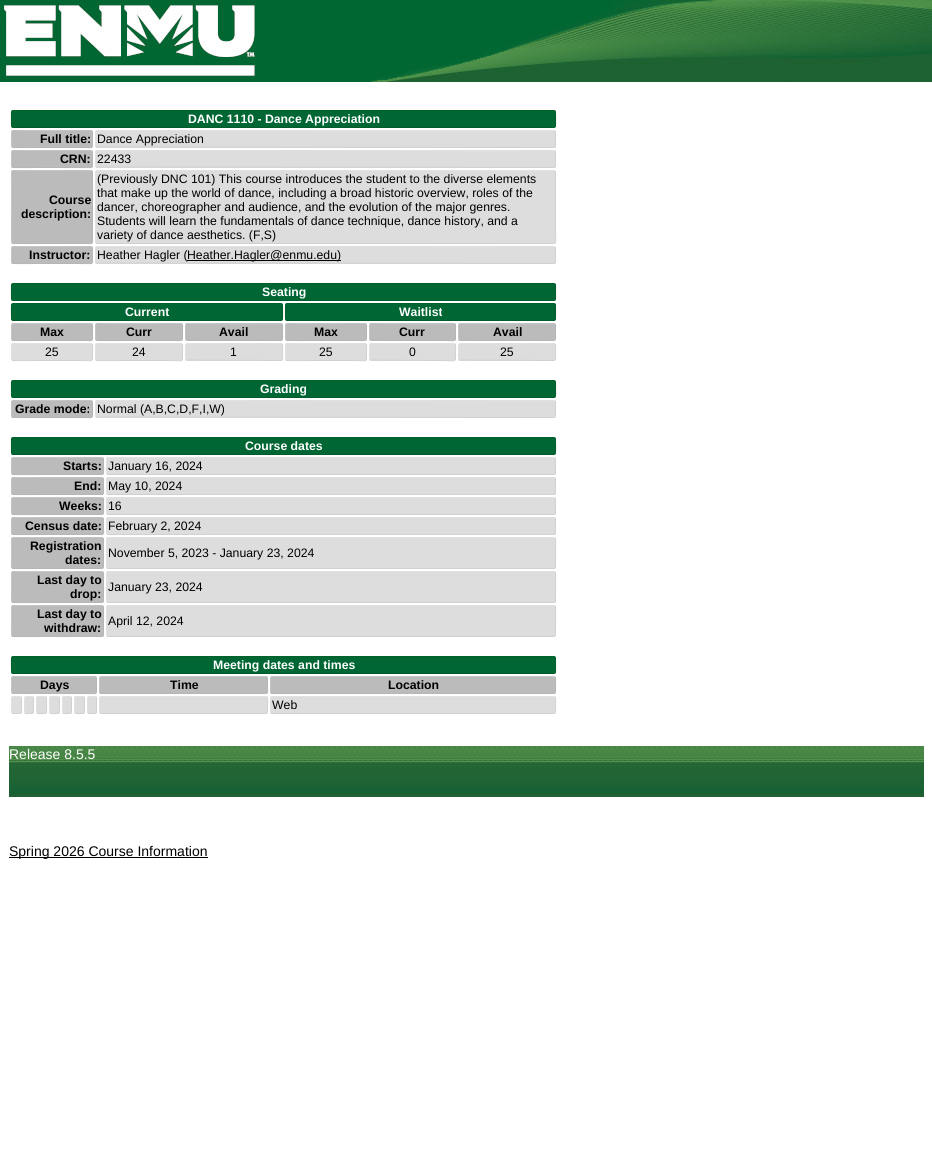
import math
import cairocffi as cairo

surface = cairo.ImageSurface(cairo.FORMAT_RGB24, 932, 1175)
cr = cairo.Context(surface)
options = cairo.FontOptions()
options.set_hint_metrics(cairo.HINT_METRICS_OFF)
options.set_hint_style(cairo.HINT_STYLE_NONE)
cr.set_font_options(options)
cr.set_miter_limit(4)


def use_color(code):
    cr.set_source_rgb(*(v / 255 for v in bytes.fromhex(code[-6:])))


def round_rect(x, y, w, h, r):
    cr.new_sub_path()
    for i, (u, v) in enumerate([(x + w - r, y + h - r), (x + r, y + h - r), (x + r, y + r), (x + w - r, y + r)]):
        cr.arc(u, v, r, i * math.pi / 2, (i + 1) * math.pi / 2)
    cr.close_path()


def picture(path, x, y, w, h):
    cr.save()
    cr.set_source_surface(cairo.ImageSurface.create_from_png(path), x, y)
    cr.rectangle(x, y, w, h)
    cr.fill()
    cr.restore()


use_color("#ffffff")
cr.paint()
picture("img1.png", 0, 0, 932, 82)
use_color("#006633")
round_rect(11, 110, 545, 18, 2)
cr.fill()
cr.new_path()
cr.move_to(555, 111)
cr.curve_to(556, 112, 556, 125, 555.5, 126.5)
cr.line_to(554, 127.5)
cr.line_to(13, 127.5)
cr.line_to(12, 127)
cr.set_source_rgba(0, 0.22, 0, 0.2)
cr.set_line_width(1)
cr.stroke()
cr.new_path()
cr.move_to(12, 127)
cr.curve_to(11, 126, 11, 113, 11.5, 111.5)
cr.line_to(13, 110.5)
cr.line_to(554, 110.5)
cr.line_to(555, 111)
cr.set_source_rgba(0, 0.329, 0, 0.2)
cr.stroke()
cr.select_font_face("Liberation Sans", cairo.FONT_SLANT_NORMAL, cairo.FONT_WEIGHT_BOLD)
cr.set_font_size(12.25)
use_color("#ffffff")
cr.move_to(188, 123)
cr.show_text("DANC 1110 - Dance Appreciation")
use_color("#bbbbbb")
round_rect(11, 130, 82, 18, 2)
cr.fill()
cr.new_path()
cr.move_to(92, 131)
cr.curve_to(93.5, 132.5, 92.5, 137.5, 92.5, 139)
cr.curve_to(92.5, 151, 93.5, 147.5, 78, 147.5)
cr.line_to(39, 147.5)
cr.curve_to(36.5, 147.5, 13.5, 148.5, 12, 147)
cr.set_source_rgba(0.627, 0.627, 0.627, 0.2)
cr.stroke()
cr.new_path()
cr.move_to(12, 147)
cr.curve_to(10.5, 145.5, 11.5, 140.5, 11.5, 139)
cr.curve_to(11.5, 127, 10.5, 130.5, 26, 130.5)
cr.line_to(65, 130.5)
cr.curve_to(67.5, 130.5, 90.5, 129.5, 92, 131)
cr.set_source_rgba(0.941, 0.941, 0.941, 0.2)
cr.stroke()
use_color("#000000")
cr.move_to(40, 143)
cr.show_text("Full title:")
use_color("#dddddd")
round_rect(95, 130, 461, 18, 2)
cr.fill()
cr.new_path()
cr.move_to(555, 131)
cr.curve_to(556, 132, 555.5, 141.5, 555.5, 143.5)
cr.curve_to(555.5, 145, 556, 147.5, 554, 147.5)
cr.line_to(96, 147)
cr.set_source_rgba(0.627, 0.627, 0.627, 0.2)
cr.stroke()
cr.new_path()
cr.move_to(96, 147)
cr.curve_to(95, 146, 95.5, 136.5, 95.5, 134.5)
cr.curve_to(95.5, 133, 95, 130.5, 97, 130.5)
cr.line_to(555, 131)
cr.set_source_rgba(0.941, 0.941, 0.941, 0.2)
cr.stroke()
cr.select_font_face("Liberation Sans")
use_color("#000000")
cr.move_to(97, 143)
cr.show_text("Dance Appreciation")
use_color("#bbbbbb")
round_rect(11, 150, 82, 18, 2)
cr.fill()
cr.new_path()
cr.move_to(92, 151)
cr.curve_to(93.5, 152.5, 92.5, 157.5, 92.5, 159)
cr.curve_to(92.5, 171, 93.5, 167.5, 78, 167.5)
cr.line_to(39, 167.5)
cr.curve_to(36.5, 167.5, 13.5, 168.5, 12, 167)
cr.set_source_rgba(0.627, 0.627, 0.627, 0.2)
cr.stroke()
cr.new_path()
cr.move_to(12, 167)
cr.curve_to(10.5, 165.5, 11.5, 160.5, 11.5, 159)
cr.curve_to(11.5, 147, 10.5, 150.5, 26, 150.5)
cr.line_to(65, 150.5)
cr.curve_to(67.5, 150.5, 90.5, 149.5, 92, 151)
cr.set_source_rgba(0.941, 0.941, 0.941, 0.2)
cr.stroke()
cr.select_font_face("Liberation Sans", cairo.FONT_SLANT_NORMAL, cairo.FONT_WEIGHT_BOLD)
use_color("#000000")
cr.move_to(60, 163)
cr.show_text("CRN:")
use_color("#dddddd")
round_rect(95, 150, 461, 18, 2)
cr.fill()
cr.new_path()
cr.move_to(555, 151)
cr.curve_to(556, 152, 555.5, 161.5, 555.5, 163.5)
cr.curve_to(555.5, 165, 556, 167.5, 554, 167.5)
cr.line_to(96, 167)
cr.set_source_rgba(0.627, 0.627, 0.627, 0.2)
cr.stroke()
cr.new_path()
cr.move_to(96, 167)
cr.curve_to(95, 166, 95.5, 156.5, 95.5, 154.5)
cr.curve_to(95.5, 153, 95, 150.5, 97, 150.5)
cr.line_to(555, 151)
cr.set_source_rgba(0.941, 0.941, 0.941, 0.2)
cr.stroke()
cr.select_font_face("Liberation Sans")
use_color("#000000")
cr.move_to(97, 163)
cr.show_text("22433")
use_color("#bbbbbb")
round_rect(11, 170, 82, 74, 2)
cr.fill()
cr.new_path()
cr.move_to(92, 171)
cr.curve_to(93.5, 172, 92.5, 203, 92.5, 207)
cr.line_to(92.5, 230.5)
cr.curve_to(92.5, 247, 95.5, 243.5, 78, 243.5)
cr.line_to(52, 243.5)
cr.curve_to(48, 243.5, 13, 244.5, 12, 243)
cr.set_source_rgba(0.627, 0.627, 0.627, 0.2)
cr.stroke()
cr.new_path()
cr.move_to(12, 243)
cr.curve_to(10.5, 242, 11.5, 211, 11.5, 207)
cr.line_to(11.5, 183.5)
cr.curve_to(11.5, 167, 8.5, 170.5, 26, 170.5)
cr.line_to(52, 170.5)
cr.curve_to(56, 170.5, 91, 169.5, 92, 171)
cr.set_source_rgba(0.941, 0.941, 0.941, 0.2)
cr.stroke()
cr.select_font_face("Liberation Sans", cairo.FONT_SLANT_NORMAL, cairo.FONT_WEIGHT_BOLD)
use_color("#000000")
cr.move_to(49, 204)
cr.show_text("Course")
cr.move_to(21, 218)
cr.show_text("description:")
use_color("#dddddd")
round_rect(95, 170, 461, 74, 2)
cr.fill()
cr.new_path()
cr.move_to(555, 171)
cr.curve_to(556, 172, 555.5, 213.5, 555.5, 218.5)
cr.line_to(555.5, 230.5)
cr.curve_to(555.5, 232, 557.5, 243.5, 554, 243.5)
cr.line_to(97, 243.5)
cr.line_to(96, 243)
cr.set_source_rgba(0.627, 0.627, 0.627, 0.2)
cr.stroke()
cr.new_path()
cr.move_to(96, 243)
cr.curve_to(95, 242, 95.5, 200.5, 95.5, 195.5)
cr.line_to(95.5, 183.5)
cr.curve_to(95.5, 182, 93.5, 170.5, 97, 170.5)
cr.line_to(554, 170.5)
cr.line_to(555, 171)
cr.set_source_rgba(0.941, 0.941, 0.941, 0.2)
cr.stroke()
cr.select_font_face("Liberation Sans")
use_color("#000000")
cr.move_to(97, 183)
cr.show_text("(Previously DNC 101) This course introduces the student to the diverse elements")
cr.move_to(97, 197)
cr.show_text("that make up the world of dance, including a broad historic overview, roles of the")
cr.move_to(97, 211)
cr.show_text("dancer, choreographer and audience, and the evolution of the major genres.")
cr.move_to(97, 225)
cr.show_text("Students will learn the fundamentals of dance technique, dance history, and a")
cr.move_to(97, 239)
cr.show_text("variety of dance aesthetics. (F,S)")
use_color("#bbbbbb")
round_rect(11, 246, 82, 18, 2)
cr.fill()
cr.new_path()
cr.move_to(92, 247)
cr.curve_to(93.5, 248.5, 92.5, 253.5, 92.5, 255)
cr.curve_to(92.5, 267, 93.5, 263.5, 78, 263.5)
cr.line_to(39, 263.5)
cr.curve_to(36.5, 263.5, 13.5, 264.5, 12, 263)
cr.set_source_rgba(0.627, 0.627, 0.627, 0.2)
cr.stroke()
cr.new_path()
cr.move_to(12, 263)
cr.curve_to(10.5, 261.5, 11.5, 256.5, 11.5, 255)
cr.curve_to(11.5, 243, 10.5, 246.5, 26, 246.5)
cr.line_to(65, 246.5)
cr.curve_to(67.5, 246.5, 90.5, 245.5, 92, 247)
cr.set_source_rgba(0.941, 0.941, 0.941, 0.2)
cr.stroke()
cr.select_font_face("Liberation Sans", cairo.FONT_SLANT_NORMAL, cairo.FONT_WEIGHT_BOLD)
use_color("#000000")
cr.move_to(29, 259)
cr.show_text("Instructor:")
use_color("#dddddd")
round_rect(95, 246, 461, 18, 2)
cr.fill()
cr.new_path()
cr.move_to(555, 247)
cr.curve_to(556, 248, 555.5, 257.5, 555.5, 259.5)
cr.curve_to(555.5, 261, 556, 263.5, 554, 263.5)
cr.line_to(96, 263)
cr.set_source_rgba(0.627, 0.627, 0.627, 0.2)
cr.stroke()
cr.new_path()
cr.move_to(96, 263)
cr.curve_to(95, 262, 95.5, 252.5, 95.5, 250.5)
cr.curve_to(95.5, 249, 95, 246.5, 97, 246.5)
cr.line_to(555, 247)
cr.set_source_rgba(0.941, 0.941, 0.941, 0.2)
cr.stroke()
cr.select_font_face("Liberation Sans")
use_color("#000000")
cr.move_to(97, 259)
cr.show_text("Heather Hagler (")
cr.rectangle(187, 260, 154, 1)
cr.fill()
cr.move_to(187, 259)
cr.show_text("Heather.Hagler@enmu.edu)")
use_color("#006633")
round_rect(11, 283, 545, 18, 2)
cr.fill()
cr.new_path()
cr.move_to(555, 284)
cr.curve_to(556, 285, 556, 298, 555.5, 299.5)
cr.line_to(554, 300.5)
cr.line_to(13, 300.5)
cr.line_to(12, 300)
cr.set_source_rgba(0, 0.22, 0, 0.2)
cr.stroke()
cr.new_path()
cr.move_to(12, 300)
cr.curve_to(11, 299, 11, 286, 11.5, 284.5)
cr.line_to(13, 283.5)
cr.line_to(554, 283.5)
cr.line_to(555, 284)
cr.set_source_rgba(0, 0.329, 0, 0.2)
cr.stroke()
cr.select_font_face("Liberation Sans", cairo.FONT_SLANT_NORMAL, cairo.FONT_WEIGHT_BOLD)
use_color("#ffffff")
cr.move_to(262, 296)
cr.show_text("Seating")
use_color("#006633")
round_rect(11, 303, 272, 18, 2)
cr.fill()
cr.new_path()
cr.move_to(282, 304)
cr.curve_to(283, 305, 283, 318.5, 282.5, 319.5)
cr.line_to(281, 320.5)
cr.line_to(13, 320.5)
cr.line_to(12, 320)
cr.set_source_rgba(0, 0.22, 0, 0.2)
cr.stroke()
cr.new_path()
cr.move_to(12, 320)
cr.curve_to(11, 319, 11, 305.5, 11.5, 304.5)
cr.line_to(13, 303.5)
cr.line_to(281, 303.5)
cr.line_to(282, 304)
cr.set_source_rgba(0, 0.329, 0, 0.2)
cr.stroke()
use_color("#ffffff")
cr.move_to(125, 316)
cr.show_text("Current")
use_color("#006633")
round_rect(285, 303, 271, 18, 2)
cr.fill()
cr.new_path()
cr.move_to(555, 304)
cr.curve_to(556, 305, 555.5, 317, 555.5, 319)
cr.curve_to(555.5, 320, 555, 320.5, 554, 320.5)
cr.line_to(287, 320.5)
cr.line_to(286, 320)
cr.set_source_rgba(0, 0.22, 0, 0.2)
cr.stroke()
cr.new_path()
cr.move_to(286, 320)
cr.curve_to(285, 319, 285.5, 307, 285.5, 305)
cr.curve_to(285.5, 304, 286, 303.5, 287, 303.5)
cr.line_to(554, 303.5)
cr.line_to(555, 304)
cr.set_source_rgba(0, 0.329, 0, 0.2)
cr.stroke()
use_color("#ffffff")
cr.move_to(399, 316)
cr.show_text("Waitlist")
use_color("#bbbbbb")
round_rect(11, 323, 82, 18, 2)
cr.fill()
cr.new_path()
cr.move_to(92, 324)
cr.curve_to(93.5, 325.5, 92.5, 330.5, 92.5, 332)
cr.curve_to(92.5, 344, 93.5, 340.5, 78, 340.5)
cr.line_to(39, 340.5)
cr.curve_to(36.5, 340.5, 13.5, 341.5, 12, 340)
cr.set_source_rgba(0.627, 0.627, 0.627, 0.2)
cr.stroke()
cr.new_path()
cr.move_to(12, 340)
cr.curve_to(10.5, 338.5, 11.5, 333.5, 11.5, 332)
cr.curve_to(11.5, 320, 10.5, 323.5, 26, 323.5)
cr.line_to(65, 323.5)
cr.curve_to(67.5, 323.5, 90.5, 322.5, 92, 324)
cr.set_source_rgba(0.941, 0.941, 0.941, 0.2)
cr.stroke()
use_color("#000000")
cr.move_to(40, 336)
cr.show_text("Max")
use_color("#bbbbbb")
round_rect(95, 323, 88, 18, 2)
cr.fill()
cr.new_path()
cr.move_to(182, 324)
cr.curve_to(183.5, 325.5, 182.5, 330.5, 182.5, 332)
cr.curve_to(182.5, 344.5, 183.5, 340.5, 167, 340.5)
cr.line_to(125, 340.5)
cr.curve_to(122.5, 340.5, 97.5, 341.5, 96, 340)
cr.set_source_rgba(0.627, 0.627, 0.627, 0.2)
cr.stroke()
cr.new_path()
cr.move_to(96, 340)
cr.curve_to(94.5, 338.5, 95.5, 333.5, 95.5, 332)
cr.curve_to(95.5, 319.5, 94.5, 323.5, 111, 323.5)
cr.line_to(153, 323.5)
cr.curve_to(155.5, 323.5, 180.5, 322.5, 182, 324)
cr.set_source_rgba(0.941, 0.941, 0.941, 0.2)
cr.stroke()
use_color("#000000")
cr.move_to(126, 336)
cr.show_text("Curr")
use_color("#bbbbbb")
round_rect(185, 323, 98, 18, 2)
cr.fill()
cr.new_path()
cr.move_to(282, 324)
cr.curve_to(283.5, 325.5, 282.5, 330.5, 282.5, 332)
cr.curve_to(282.5, 333, 284, 340.5, 281, 340.5)
cr.line_to(186, 340)
cr.set_source_rgba(0.627, 0.627, 0.627, 0.2)
cr.stroke()
cr.new_path()
cr.move_to(186, 340)
cr.curve_to(184.5, 338.5, 185.5, 333.5, 185.5, 332)
cr.curve_to(185.5, 331, 184, 323.5, 187, 323.5)
cr.line_to(282, 324)
cr.set_source_rgba(0.941, 0.941, 0.941, 0.2)
cr.stroke()
use_color("#000000")
cr.move_to(219, 336)
cr.show_text("Avail")
use_color("#bbbbbb")
round_rect(285, 323, 82, 18, 2)
cr.fill()
cr.new_path()
cr.move_to(366, 324)
cr.curve_to(367.5, 325.5, 366.5, 330.5, 366.5, 332)
cr.curve_to(366.5, 344, 367.5, 340.5, 352, 340.5)
cr.line_to(313, 340.5)
cr.curve_to(310.5, 340.5, 287.5, 341.5, 286, 340)
cr.set_source_rgba(0.627, 0.627, 0.627, 0.2)
cr.stroke()
cr.new_path()
cr.move_to(286, 340)
cr.curve_to(284.5, 338.5, 285.5, 333.5, 285.5, 332)
cr.curve_to(285.5, 320, 284.5, 323.5, 300, 323.5)
cr.line_to(339, 323.5)
cr.curve_to(341.5, 323.5, 364.5, 322.5, 366, 324)
cr.set_source_rgba(0.941, 0.941, 0.941, 0.2)
cr.stroke()
use_color("#000000")
cr.move_to(314, 336)
cr.show_text("Max")
use_color("#bbbbbb")
round_rect(369, 323, 87, 18, 2)
cr.fill()
cr.new_path()
cr.move_to(455, 324)
cr.curve_to(456.5, 325.5, 455.5, 330.5, 455.5, 332)
cr.curve_to(455.5, 344.5, 456.5, 340.5, 440, 340.5)
cr.line_to(370, 340)
cr.set_source_rgba(0.627, 0.627, 0.627, 0.2)
cr.stroke()
cr.new_path()
cr.move_to(370, 340)
cr.curve_to(368.5, 338.5, 369.5, 333.5, 369.5, 332)
cr.curve_to(369.5, 319.5, 368.5, 323.5, 385, 323.5)
cr.line_to(455, 324)
cr.set_source_rgba(0.941, 0.941, 0.941, 0.2)
cr.stroke()
use_color("#000000")
cr.move_to(399, 336)
cr.show_text("Curr")
use_color("#bbbbbb")
round_rect(458, 323, 98, 18, 2)
cr.fill()
cr.new_path()
cr.move_to(555, 324)
cr.curve_to(556.5, 325.5, 555.5, 330.5, 555.5, 332)
cr.curve_to(555.5, 333, 557, 340.5, 554, 340.5)
cr.line_to(459, 340)
cr.set_source_rgba(0.627, 0.627, 0.627, 0.2)
cr.stroke()
cr.new_path()
cr.move_to(459, 340)
cr.curve_to(457.5, 338.5, 458.5, 333.5, 458.5, 332)
cr.curve_to(458.5, 331, 457, 323.5, 460, 323.5)
cr.line_to(555, 324)
cr.set_source_rgba(0.941, 0.941, 0.941, 0.2)
cr.stroke()
use_color("#000000")
cr.move_to(493, 336)
cr.show_text("Avail")
use_color("#dddddd")
round_rect(11, 343, 82, 18, 2)
cr.fill()
cr.new_path()
cr.move_to(92, 344)
cr.curve_to(93.5, 345.5, 92.5, 350.5, 92.5, 352)
cr.curve_to(92.5, 364, 93.5, 360.5, 78, 360.5)
cr.line_to(39, 360.5)
cr.curve_to(36.5, 360.5, 13.5, 361.5, 12, 360)
cr.set_source_rgba(0.627, 0.627, 0.627, 0.2)
cr.stroke()
cr.new_path()
cr.move_to(12, 360)
cr.curve_to(10.5, 358.5, 11.5, 353.5, 11.5, 352)
cr.curve_to(11.5, 340, 10.5, 343.5, 26, 343.5)
cr.line_to(65, 343.5)
cr.curve_to(67.5, 343.5, 90.5, 342.5, 92, 344)
cr.set_source_rgba(0.941, 0.941, 0.941, 0.2)
cr.stroke()
cr.select_font_face("Liberation Sans")
use_color("#000000")
cr.move_to(45, 356)
cr.show_text("25")
use_color("#dddddd")
round_rect(95, 343, 88, 18, 2)
cr.fill()
cr.new_path()
cr.move_to(182, 344)
cr.curve_to(183.5, 345.5, 182.5, 350.5, 182.5, 352)
cr.curve_to(182.5, 364.5, 183.5, 360.5, 167, 360.5)
cr.line_to(125, 360.5)
cr.curve_to(122.5, 360.5, 97.5, 361.5, 96, 360)
cr.set_source_rgba(0.627, 0.627, 0.627, 0.2)
cr.stroke()
cr.new_path()
cr.move_to(96, 360)
cr.curve_to(94.5, 358.5, 95.5, 353.5, 95.5, 352)
cr.curve_to(95.5, 339.5, 94.5, 343.5, 111, 343.5)
cr.line_to(153, 343.5)
cr.curve_to(155.5, 343.5, 180.5, 342.5, 182, 344)
cr.set_source_rgba(0.941, 0.941, 0.941, 0.2)
cr.stroke()
use_color("#000000")
cr.move_to(132, 356)
cr.show_text("24")
use_color("#dddddd")
round_rect(185, 343, 98, 18, 2)
cr.fill()
cr.new_path()
cr.move_to(282, 344)
cr.curve_to(283.5, 345.5, 282.5, 350.5, 282.5, 352)
cr.curve_to(282.5, 353, 284, 360.5, 281, 360.5)
cr.line_to(186, 360)
cr.set_source_rgba(0.627, 0.627, 0.627, 0.2)
cr.stroke()
cr.new_path()
cr.move_to(186, 360)
cr.curve_to(184.5, 358.5, 185.5, 353.5, 185.5, 352)
cr.curve_to(185.5, 351, 184, 343.5, 187, 343.5)
cr.line_to(282, 344)
cr.set_source_rgba(0.941, 0.941, 0.941, 0.2)
cr.stroke()
use_color("#000000")
cr.move_to(230, 356)
cr.show_text("1")
use_color("#dddddd")
round_rect(285, 343, 82, 18, 2)
cr.fill()
cr.new_path()
cr.move_to(366, 344)
cr.curve_to(367.5, 345.5, 366.5, 350.5, 366.5, 352)
cr.curve_to(366.5, 364, 367.5, 360.5, 352, 360.5)
cr.line_to(313, 360.5)
cr.curve_to(310.5, 360.5, 287.5, 361.5, 286, 360)
cr.set_source_rgba(0.627, 0.627, 0.627, 0.2)
cr.stroke()
cr.new_path()
cr.move_to(286, 360)
cr.curve_to(284.5, 358.5, 285.5, 353.5, 285.5, 352)
cr.curve_to(285.5, 340, 284.5, 343.5, 300, 343.5)
cr.line_to(339, 343.5)
cr.curve_to(341.5, 343.5, 364.5, 342.5, 366, 344)
cr.set_source_rgba(0.941, 0.941, 0.941, 0.2)
cr.stroke()
use_color("#000000")
cr.move_to(319, 356)
cr.show_text("25")
use_color("#dddddd")
round_rect(369, 343, 87, 18, 2)
cr.fill()
cr.new_path()
cr.move_to(455, 344)
cr.curve_to(456.5, 345.5, 455.5, 350.5, 455.5, 352)
cr.curve_to(455.5, 364.5, 456.5, 360.5, 440, 360.5)
cr.line_to(370, 360)
cr.set_source_rgba(0.627, 0.627, 0.627, 0.2)
cr.stroke()
cr.new_path()
cr.move_to(370, 360)
cr.curve_to(368.5, 358.5, 369.5, 353.5, 369.5, 352)
cr.curve_to(369.5, 339.5, 368.5, 343.5, 385, 343.5)
cr.line_to(455, 344)
cr.set_source_rgba(0.941, 0.941, 0.941, 0.2)
cr.stroke()
use_color("#000000")
cr.move_to(409, 356)
cr.show_text("0")
use_color("#dddddd")
round_rect(458, 343, 98, 18, 2)
cr.fill()
cr.new_path()
cr.move_to(555, 344)
cr.curve_to(556.5, 345.5, 555.5, 350.5, 555.5, 352)
cr.curve_to(555.5, 353, 557, 360.5, 554, 360.5)
cr.line_to(459, 360)
cr.set_source_rgba(0.627, 0.627, 0.627, 0.2)
cr.stroke()
cr.new_path()
cr.move_to(459, 360)
cr.curve_to(457.5, 358.5, 458.5, 353.5, 458.5, 352)
cr.curve_to(458.5, 351, 457, 343.5, 460, 343.5)
cr.line_to(555, 344)
cr.set_source_rgba(0.941, 0.941, 0.941, 0.2)
cr.stroke()
use_color("#000000")
cr.move_to(500, 356)
cr.show_text("25")
use_color("#006633")
round_rect(11, 380, 545, 18, 2)
cr.fill()
cr.new_path()
cr.move_to(555, 381)
cr.curve_to(556, 382, 556, 395, 555.5, 396.5)
cr.line_to(554, 397.5)
cr.line_to(13, 397.5)
cr.line_to(12, 397)
cr.set_source_rgba(0, 0.22, 0, 0.2)
cr.stroke()
cr.new_path()
cr.move_to(12, 397)
cr.curve_to(11, 396, 11, 383, 11.5, 381.5)
cr.line_to(13, 380.5)
cr.line_to(554, 380.5)
cr.line_to(555, 381)
cr.set_source_rgba(0, 0.329, 0, 0.2)
cr.stroke()
cr.select_font_face("Liberation Sans", cairo.FONT_SLANT_NORMAL, cairo.FONT_WEIGHT_BOLD)
use_color("#ffffff")
cr.move_to(260, 393)
cr.show_text("Grading")
use_color("#bbbbbb")
round_rect(11, 400, 82, 18, 2)
cr.fill()
cr.new_path()
cr.move_to(92, 401)
cr.curve_to(93.5, 402.5, 92.5, 407.5, 92.5, 409)
cr.curve_to(92.5, 421, 93.5, 417.5, 78, 417.5)
cr.line_to(39, 417.5)
cr.curve_to(36.5, 417.5, 13.5, 418.5, 12, 417)
cr.set_source_rgba(0.627, 0.627, 0.627, 0.2)
cr.stroke()
cr.new_path()
cr.move_to(12, 417)
cr.curve_to(10.5, 415.5, 11.5, 410.5, 11.5, 409)
cr.curve_to(11.5, 397, 10.5, 400.5, 26, 400.5)
cr.line_to(65, 400.5)
cr.curve_to(67.5, 400.5, 90.5, 399.5, 92, 401)
cr.set_source_rgba(0.941, 0.941, 0.941, 0.2)
cr.stroke()
use_color("#000000")
cr.move_to(15, 413)
cr.show_text("Grade mode:")
use_color("#dddddd")
round_rect(95, 400, 461, 18, 2)
cr.fill()
cr.new_path()
cr.move_to(555, 401)
cr.curve_to(556, 402, 555.5, 411.5, 555.5, 413.5)
cr.curve_to(555.5, 415, 556, 417.5, 554, 417.5)
cr.line_to(96, 417)
cr.set_source_rgba(0.627, 0.627, 0.627, 0.2)
cr.stroke()
cr.new_path()
cr.move_to(96, 417)
cr.curve_to(95, 416, 95.5, 406.5, 95.5, 404.5)
cr.curve_to(95.5, 403, 95, 400.5, 97, 400.5)
cr.line_to(555, 401)
cr.set_source_rgba(0.941, 0.941, 0.941, 0.2)
cr.stroke()
cr.select_font_face("Liberation Sans")
use_color("#000000")
cr.move_to(97, 413)
cr.show_text("Normal (A,B,C,D,F,I,W)")
use_color("#006633")
round_rect(11, 437, 545, 18, 2)
cr.fill()
cr.new_path()
cr.move_to(555, 438)
cr.curve_to(556, 439, 556, 452, 555.5, 453.5)
cr.line_to(554, 454.5)
cr.line_to(13, 454.5)
cr.line_to(12, 454)
cr.set_source_rgba(0, 0.22, 0, 0.2)
cr.stroke()
cr.new_path()
cr.move_to(12, 454)
cr.curve_to(11, 453, 11, 440, 11.5, 438.5)
cr.line_to(13, 437.5)
cr.line_to(554, 437.5)
cr.line_to(555, 438)
cr.set_source_rgba(0, 0.329, 0, 0.2)
cr.stroke()
cr.select_font_face("Liberation Sans", cairo.FONT_SLANT_NORMAL, cairo.FONT_WEIGHT_BOLD)
use_color("#ffffff")
cr.move_to(245, 450)
cr.show_text("Course dates")
use_color("#bbbbbb")
round_rect(11, 457, 93, 18, 2)
cr.fill()
cr.new_path()
cr.move_to(103, 458)
cr.curve_to(104.5, 459.5, 103.5, 464.5, 103.5, 466)
cr.curve_to(103.5, 467, 105, 474.5, 102, 474.5)
cr.line_to(42.5, 474.5)
cr.curve_to(40.5, 474.5, 13.5, 475.5, 12, 474)
cr.set_source_rgba(0.627, 0.627, 0.627, 0.2)
cr.stroke()
cr.new_path()
cr.move_to(12, 474)
cr.curve_to(10.5, 472.5, 11.5, 467.5, 11.5, 466)
cr.curve_to(11.5, 465, 10, 457.5, 13, 457.5)
cr.line_to(72.5, 457.5)
cr.curve_to(74.5, 457.5, 101.5, 456.5, 103, 458)
cr.set_source_rgba(0.941, 0.941, 0.941, 0.2)
cr.stroke()
use_color("#000000")
cr.move_to(63, 470)
cr.show_text("Starts:")
use_color("#dddddd")
round_rect(106, 457, 450, 18, 2)
cr.fill()
cr.new_path()
cr.move_to(555, 458)
cr.curve_to(556, 459, 555.5, 468.5, 555.5, 470.5)
cr.curve_to(555.5, 472, 556, 474.5, 554, 474.5)
cr.line_to(108, 474.5)
cr.line_to(107, 474)
cr.set_source_rgba(0.627, 0.627, 0.627, 0.2)
cr.stroke()
cr.new_path()
cr.move_to(107, 474)
cr.curve_to(106, 473, 106.5, 463.5, 106.5, 461.5)
cr.curve_to(106.5, 460, 106, 457.5, 108, 457.5)
cr.line_to(554, 457.5)
cr.line_to(555, 458)
cr.set_source_rgba(0.941, 0.941, 0.941, 0.2)
cr.stroke()
cr.select_font_face("Liberation Sans")
use_color("#000000")
cr.move_to(108, 470)
cr.show_text("January 16, 2024")
use_color("#bbbbbb")
round_rect(11, 477, 93, 18, 2)
cr.fill()
cr.new_path()
cr.move_to(103, 478)
cr.curve_to(104.5, 479.5, 103.5, 484.5, 103.5, 486)
cr.curve_to(103.5, 487, 105, 494.5, 102, 494.5)
cr.line_to(42.5, 494.5)
cr.curve_to(40.5, 494.5, 13.5, 495.5, 12, 494)
cr.set_source_rgba(0.627, 0.627, 0.627, 0.2)
cr.stroke()
cr.new_path()
cr.move_to(12, 494)
cr.curve_to(10.5, 492.5, 11.5, 487.5, 11.5, 486)
cr.curve_to(11.5, 485, 10, 477.5, 13, 477.5)
cr.line_to(72.5, 477.5)
cr.curve_to(74.5, 477.5, 101.5, 476.5, 103, 478)
cr.set_source_rgba(0.941, 0.941, 0.941, 0.2)
cr.stroke()
cr.select_font_face("Liberation Sans", cairo.FONT_SLANT_NORMAL, cairo.FONT_WEIGHT_BOLD)
use_color("#000000")
cr.move_to(74, 490)
cr.show_text("End:")
use_color("#dddddd")
round_rect(106, 477, 450, 18, 2)
cr.fill()
cr.new_path()
cr.move_to(555, 478)
cr.curve_to(556, 479, 555.5, 488.5, 555.5, 490.5)
cr.curve_to(555.5, 492, 556, 494.5, 554, 494.5)
cr.line_to(108, 494.5)
cr.line_to(107, 494)
cr.set_source_rgba(0.627, 0.627, 0.627, 0.2)
cr.stroke()
cr.new_path()
cr.move_to(107, 494)
cr.curve_to(106, 493, 106.5, 483.5, 106.5, 481.5)
cr.curve_to(106.5, 480, 106, 477.5, 108, 477.5)
cr.line_to(554, 477.5)
cr.line_to(555, 478)
cr.set_source_rgba(0.941, 0.941, 0.941, 0.2)
cr.stroke()
cr.select_font_face("Liberation Sans")
use_color("#000000")
cr.move_to(108, 490)
cr.show_text("May 10, 2024")
use_color("#bbbbbb")
round_rect(11, 497, 93, 18, 2)
cr.fill()
cr.new_path()
cr.move_to(103, 498)
cr.curve_to(104.5, 499.5, 103.5, 504.5, 103.5, 506)
cr.curve_to(103.5, 507, 105, 514.5, 102, 514.5)
cr.line_to(42.5, 514.5)
cr.curve_to(40.5, 514.5, 13.5, 515.5, 12, 514)
cr.set_source_rgba(0.627, 0.627, 0.627, 0.2)
cr.stroke()
cr.new_path()
cr.move_to(12, 514)
cr.curve_to(10.5, 512.5, 11.5, 507.5, 11.5, 506)
cr.curve_to(11.5, 505, 10, 497.5, 13, 497.5)
cr.line_to(72.5, 497.5)
cr.curve_to(74.5, 497.5, 101.5, 496.5, 103, 498)
cr.set_source_rgba(0.941, 0.941, 0.941, 0.2)
cr.stroke()
cr.select_font_face("Liberation Sans", cairo.FONT_SLANT_NORMAL, cairo.FONT_WEIGHT_BOLD)
use_color("#000000")
cr.move_to(59, 510)
cr.show_text("Weeks:")
use_color("#dddddd")
round_rect(106, 497, 450, 18, 2)
cr.fill()
cr.new_path()
cr.move_to(555, 498)
cr.curve_to(556, 499, 555.5, 508.5, 555.5, 510.5)
cr.curve_to(555.5, 512, 556, 514.5, 554, 514.5)
cr.line_to(108, 514.5)
cr.line_to(107, 514)
cr.set_source_rgba(0.627, 0.627, 0.627, 0.2)
cr.stroke()
cr.new_path()
cr.move_to(107, 514)
cr.curve_to(106, 513, 106.5, 503.5, 106.5, 501.5)
cr.curve_to(106.5, 500, 106, 497.5, 108, 497.5)
cr.line_to(554, 497.5)
cr.line_to(555, 498)
cr.set_source_rgba(0.941, 0.941, 0.941, 0.2)
cr.stroke()
cr.select_font_face("Liberation Sans")
use_color("#000000")
cr.move_to(108, 510)
cr.show_text("16")
use_color("#bbbbbb")
round_rect(11, 517, 93, 18, 2)
cr.fill()
cr.new_path()
cr.move_to(103, 518)
cr.curve_to(104.5, 519.5, 103.5, 524.5, 103.5, 526)
cr.curve_to(103.5, 527, 105, 534.5, 102, 534.5)
cr.line_to(42.5, 534.5)
cr.curve_to(40.5, 534.5, 13.5, 535.5, 12, 534)
cr.set_source_rgba(0.627, 0.627, 0.627, 0.2)
cr.stroke()
cr.new_path()
cr.move_to(12, 534)
cr.curve_to(10.5, 532.5, 11.5, 527.5, 11.5, 526)
cr.curve_to(11.5, 525, 10, 517.5, 13, 517.5)
cr.line_to(72.5, 517.5)
cr.curve_to(74.5, 517.5, 101.5, 516.5, 103, 518)
cr.set_source_rgba(0.941, 0.941, 0.941, 0.2)
cr.stroke()
cr.select_font_face("Liberation Sans", cairo.FONT_SLANT_NORMAL, cairo.FONT_WEIGHT_BOLD)
use_color("#000000")
cr.move_to(25, 530)
cr.show_text("Census date:")
use_color("#dddddd")
round_rect(106, 517, 450, 18, 2)
cr.fill()
cr.new_path()
cr.move_to(555, 518)
cr.curve_to(556, 519, 555.5, 528.5, 555.5, 530.5)
cr.curve_to(555.5, 532, 556, 534.5, 554, 534.5)
cr.line_to(108, 534.5)
cr.line_to(107, 534)
cr.set_source_rgba(0.627, 0.627, 0.627, 0.2)
cr.stroke()
cr.new_path()
cr.move_to(107, 534)
cr.curve_to(106, 533, 106.5, 523.5, 106.5, 521.5)
cr.curve_to(106.5, 520, 106, 517.5, 108, 517.5)
cr.line_to(554, 517.5)
cr.line_to(555, 518)
cr.set_source_rgba(0.941, 0.941, 0.941, 0.2)
cr.stroke()
cr.select_font_face("Liberation Sans")
use_color("#000000")
cr.move_to(108, 530)
cr.show_text("February 2, 2024")
use_color("#bbbbbb")
round_rect(11, 537, 93, 32, 2)
cr.fill()
cr.new_path()
cr.move_to(103, 538)
cr.curve_to(104.5, 539.5, 103.5, 546.5, 103.5, 548.5)
cr.line_to(103.5, 562.5)
cr.curve_to(103.5, 563, 104.5, 568.5, 102, 568.5)
cr.line_to(42.5, 568.5)
cr.curve_to(40.5, 568.5, 13.5, 569.5, 12, 568)
cr.set_source_rgba(0.627, 0.627, 0.627, 0.2)
cr.stroke()
cr.new_path()
cr.move_to(12, 568)
cr.curve_to(10.5, 566.5, 11.5, 559.5, 11.5, 557.5)
cr.line_to(11.5, 543.5)
cr.curve_to(11.5, 543, 10.5, 537.5, 13, 537.5)
cr.line_to(72.5, 537.5)
cr.curve_to(74.5, 537.5, 101.5, 536.5, 103, 538)
cr.set_source_rgba(0.941, 0.941, 0.941, 0.2)
cr.stroke()
cr.select_font_face("Liberation Sans", cairo.FONT_SLANT_NORMAL, cairo.FONT_WEIGHT_BOLD)
use_color("#000000")
cr.move_to(30, 550)
cr.show_text("Registration")
cr.move_to(65, 564)
cr.show_text("dates:")
use_color("#dddddd")
round_rect(106, 537, 450, 32, 2)
cr.fill()
cr.new_path()
cr.move_to(555, 538)
cr.curve_to(556.5, 539, 555.5, 559, 555.5, 562.5)
cr.curve_to(555.5, 562.5, 556.5, 568.5, 554, 568.5)
cr.line_to(108, 568.5)
cr.line_to(107, 568)
cr.set_source_rgba(0.627, 0.627, 0.627, 0.2)
cr.stroke()
cr.new_path()
cr.move_to(107, 568)
cr.curve_to(105.5, 567, 106.5, 547, 106.5, 543.5)
cr.curve_to(106.5, 543.5, 105.5, 537.5, 108, 537.5)
cr.line_to(554, 537.5)
cr.line_to(555, 538)
cr.set_source_rgba(0.941, 0.941, 0.941, 0.2)
cr.stroke()
cr.select_font_face("Liberation Sans")
use_color("#000000")
cr.move_to(108, 557)
cr.show_text("November 5, 2023 - January 23, 2024")
use_color("#bbbbbb")
round_rect(11, 571, 93, 32, 2)
cr.fill()
cr.new_path()
cr.move_to(103, 572)
cr.curve_to(104.5, 573.5, 103.5, 580.5, 103.5, 582.5)
cr.line_to(103.5, 596.5)
cr.curve_to(103.5, 597, 104.5, 602.5, 102, 602.5)
cr.line_to(42.5, 602.5)
cr.curve_to(40.5, 602.5, 13.5, 603.5, 12, 602)
cr.set_source_rgba(0.627, 0.627, 0.627, 0.2)
cr.stroke()
cr.new_path()
cr.move_to(12, 602)
cr.curve_to(10.5, 600.5, 11.5, 593.5, 11.5, 591.5)
cr.line_to(11.5, 577.5)
cr.curve_to(11.5, 577, 10.5, 571.5, 13, 571.5)
cr.line_to(72.5, 571.5)
cr.curve_to(74.5, 571.5, 101.5, 570.5, 103, 572)
cr.set_source_rgba(0.941, 0.941, 0.941, 0.2)
cr.stroke()
cr.select_font_face("Liberation Sans", cairo.FONT_SLANT_NORMAL, cairo.FONT_WEIGHT_BOLD)
use_color("#000000")
cr.move_to(37, 584)
cr.show_text("Last day to")
cr.move_to(70, 598)
cr.show_text("drop:")
use_color("#dddddd")
round_rect(106, 571, 450, 32, 2)
cr.fill()
cr.new_path()
cr.move_to(555, 572)
cr.curve_to(556.5, 573, 555.5, 593, 555.5, 596.5)
cr.curve_to(555.5, 596.5, 556.5, 602.5, 554, 602.5)
cr.line_to(108, 602.5)
cr.line_to(107, 602)
cr.set_source_rgba(0.627, 0.627, 0.627, 0.2)
cr.stroke()
cr.new_path()
cr.move_to(107, 602)
cr.curve_to(105.5, 601, 106.5, 581, 106.5, 577.5)
cr.curve_to(106.5, 577.5, 105.5, 571.5, 108, 571.5)
cr.line_to(554, 571.5)
cr.line_to(555, 572)
cr.set_source_rgba(0.941, 0.941, 0.941, 0.2)
cr.stroke()
cr.select_font_face("Liberation Sans")
use_color("#000000")
cr.move_to(108, 591)
cr.show_text("January 23, 2024")
use_color("#bbbbbb")
round_rect(11, 605, 93, 32, 2)
cr.fill()
cr.new_path()
cr.move_to(103, 606)
cr.curve_to(104.5, 607.5, 103.5, 614.5, 103.5, 616.5)
cr.line_to(103.5, 630.5)
cr.curve_to(103.5, 631, 104.5, 636.5, 102, 636.5)
cr.line_to(42.5, 636.5)
cr.curve_to(40.5, 636.5, 13.5, 637.5, 12, 636)
cr.set_source_rgba(0.627, 0.627, 0.627, 0.2)
cr.stroke()
cr.new_path()
cr.move_to(12, 636)
cr.curve_to(10.5, 634.5, 11.5, 627.5, 11.5, 625.5)
cr.line_to(11.5, 611.5)
cr.curve_to(11.5, 611, 10.5, 605.5, 13, 605.5)
cr.line_to(72.5, 605.5)
cr.curve_to(74.5, 605.5, 101.5, 604.5, 103, 606)
cr.set_source_rgba(0.941, 0.941, 0.941, 0.2)
cr.stroke()
cr.select_font_face("Liberation Sans", cairo.FONT_SLANT_NORMAL, cairo.FONT_WEIGHT_BOLD)
use_color("#000000")
cr.move_to(37, 618)
cr.show_text("Last day to")
cr.move_to(44, 632)
cr.show_text("withdraw:")
use_color("#dddddd")
round_rect(106, 605, 450, 32, 2)
cr.fill()
cr.new_path()
cr.move_to(555, 606)
cr.curve_to(556.5, 607, 555.5, 627, 555.5, 630.5)
cr.curve_to(555.5, 630.5, 556.5, 636.5, 554, 636.5)
cr.line_to(108, 636.5)
cr.line_to(107, 636)
cr.set_source_rgba(0.627, 0.627, 0.627, 0.2)
cr.stroke()
cr.new_path()
cr.move_to(107, 636)
cr.curve_to(105.5, 635, 106.5, 615, 106.5, 611.5)
cr.curve_to(106.5, 611.5, 105.5, 605.5, 108, 605.5)
cr.line_to(554, 605.5)
cr.line_to(555, 606)
cr.set_source_rgba(0.941, 0.941, 0.941, 0.2)
cr.stroke()
cr.select_font_face("Liberation Sans")
use_color("#000000")
cr.move_to(108, 625)
cr.show_text("April 12, 2024")
use_color("#006633")
round_rect(11, 656, 545, 18, 2)
cr.fill()
cr.new_path()
cr.move_to(555, 657)
cr.curve_to(556, 658, 556, 671, 555.5, 672.5)
cr.line_to(554, 673.5)
cr.line_to(13, 673.5)
cr.line_to(12, 673)
cr.set_source_rgba(0, 0.22, 0, 0.2)
cr.stroke()
cr.new_path()
cr.move_to(12, 673)
cr.curve_to(11, 672, 11, 659, 11.5, 657.5)
cr.line_to(13, 656.5)
cr.line_to(554, 656.5)
cr.line_to(555, 657)
cr.set_source_rgba(0, 0.329, 0, 0.2)
cr.stroke()
cr.select_font_face("Liberation Sans", cairo.FONT_SLANT_NORMAL, cairo.FONT_WEIGHT_BOLD)
use_color("#ffffff")
cr.move_to(213, 669)
cr.show_text("Meeting dates and times")
use_color("#bbbbbb")
round_rect(11, 676, 86, 18, 2)
cr.fill()
cr.new_path()
cr.move_to(96, 677)
cr.curve_to(97.5, 678.5, 96.5, 683.5, 96.5, 685)
cr.curve_to(96.5, 697.5, 97.5, 693.5, 81.5, 693.5)
cr.line_to(12, 693)
cr.set_source_rgba(0.627, 0.627, 0.627, 0.2)
cr.stroke()
cr.new_path()
cr.move_to(12, 693)
cr.curve_to(10.5, 691.5, 11.5, 686.5, 11.5, 685)
cr.curve_to(11.5, 672.5, 10.5, 676.5, 26.5, 676.5)
cr.line_to(96, 677)
cr.set_source_rgba(0.941, 0.941, 0.941, 0.2)
cr.stroke()
use_color("#000000")
cr.move_to(40, 689)
cr.show_text("Days")
use_color("#bbbbbb")
round_rect(99, 676, 169, 18, 2)
cr.fill()
cr.new_path()
cr.move_to(267, 677)
cr.curve_to(268.5, 678.5, 267.5, 685.5, 267.5, 687.5)
cr.curve_to(267.5, 688.5, 268.5, 693.5, 266, 693.5)
cr.line_to(101, 693.5)
cr.line_to(100, 693)
cr.set_source_rgba(0.627, 0.627, 0.627, 0.2)
cr.stroke()
cr.new_path()
cr.move_to(100, 693)
cr.curve_to(98.5, 691.5, 99.5, 684.5, 99.5, 682.5)
cr.curve_to(99.5, 681.5, 98.5, 676.5, 101, 676.5)
cr.line_to(266, 676.5)
cr.line_to(267, 677)
cr.set_source_rgba(0.941, 0.941, 0.941, 0.2)
cr.stroke()
use_color("#000000")
cr.move_to(170, 689)
cr.show_text("Time")
use_color("#bbbbbb")
round_rect(270, 676, 286, 18, 2)
cr.fill()
cr.new_path()
cr.move_to(555, 677)
cr.curve_to(556.5, 678, 555.5, 690, 555.5, 692)
cr.line_to(555, 693)
cr.line_to(554, 693.5)
cr.line_to(271.5, 693.5)
cr.line_to(271, 693)
cr.set_source_rgba(0.627, 0.627, 0.627, 0.2)
cr.stroke()
cr.new_path()
cr.move_to(271, 693)
cr.curve_to(269.5, 692, 270.5, 680, 270.5, 678)
cr.line_to(271, 677)
cr.line_to(272, 676.5)
cr.line_to(554.5, 676.5)
cr.line_to(555, 677)
cr.set_source_rgba(0.941, 0.941, 0.941, 0.2)
cr.stroke()
use_color("#000000")
cr.move_to(388, 689)
cr.show_text("Location")
use_color("#dddddd")
round_rect(11, 696, 11, 18, 2)
cr.fill()
cr.new_path()
cr.move_to(21, 697)
cr.curve_to(22, 698, 21.5, 703.5, 21.5, 705)
cr.curve_to(21.5, 713, 23.5, 713.5, 16.5, 713.5)
cr.curve_to(15.5, 713.5, 13, 714, 12, 713)
cr.set_source_rgba(0.627, 0.627, 0.627, 0.2)
cr.stroke()
cr.new_path()
cr.move_to(12, 713)
cr.curve_to(11, 712, 11.5, 706.5, 11.5, 705)
cr.curve_to(11.5, 697, 9.5, 696.5, 16.5, 696.5)
cr.curve_to(17.5, 696.5, 20, 696, 21, 697)
cr.set_source_rgba(0.941, 0.941, 0.941, 0.2)
cr.stroke()
use_color("#dddddd")
round_rect(24, 696, 10, 18, 2)
cr.fill()
cr.new_path()
cr.move_to(33, 697)
cr.curve_to(34, 698, 33.5, 703.5, 33.5, 705)
cr.line_to(33.5, 709.5)
cr.curve_to(33.5, 714, 33.5, 713.5, 29, 713.5)
cr.curve_to(28, 713.5, 26, 714, 25, 713)
cr.set_source_rgba(0.627, 0.627, 0.627, 0.2)
cr.stroke()
cr.new_path()
cr.move_to(25, 713)
cr.curve_to(24, 712, 24.5, 706.5, 24.5, 705)
cr.line_to(24.5, 700.5)
cr.curve_to(24.5, 696, 24.5, 696.5, 29, 696.5)
cr.curve_to(30, 696.5, 32, 696, 33, 697)
cr.set_source_rgba(0.941, 0.941, 0.941, 0.2)
cr.stroke()
use_color("#dddddd")
round_rect(36, 696, 11, 18, 2)
cr.fill()
cr.new_path()
cr.move_to(46, 697)
cr.curve_to(47, 698, 46.5, 703.5, 46.5, 705)
cr.curve_to(46.5, 713, 48.5, 713.5, 41.5, 713.5)
cr.curve_to(40.5, 713.5, 38, 714, 37, 713)
cr.set_source_rgba(0.627, 0.627, 0.627, 0.2)
cr.stroke()
cr.new_path()
cr.move_to(37, 713)
cr.curve_to(36, 712, 36.5, 706.5, 36.5, 705)
cr.curve_to(36.5, 697, 34.5, 696.5, 41.5, 696.5)
cr.curve_to(42.5, 696.5, 45, 696, 46, 697)
cr.set_source_rgba(0.941, 0.941, 0.941, 0.2)
cr.stroke()
use_color("#dddddd")
round_rect(49, 696, 11, 18, 2)
cr.fill()
cr.new_path()
cr.move_to(59, 697)
cr.curve_to(60, 698, 59.5, 703.5, 59.5, 705)
cr.curve_to(59.5, 713, 61.5, 713.5, 54.5, 713.5)
cr.curve_to(53.5, 713.5, 51, 714, 50, 713)
cr.set_source_rgba(0.627, 0.627, 0.627, 0.2)
cr.stroke()
cr.new_path()
cr.move_to(50, 713)
cr.curve_to(49, 712, 49.5, 706.5, 49.5, 705)
cr.curve_to(49.5, 697, 47.5, 696.5, 54.5, 696.5)
cr.curve_to(55.5, 696.5, 58, 696, 59, 697)
cr.set_source_rgba(0.941, 0.941, 0.941, 0.2)
cr.stroke()
use_color("#dddddd")
round_rect(62, 696, 10, 18, 2)
cr.fill()
cr.new_path()
cr.move_to(71, 697)
cr.curve_to(72, 698, 71.5, 703.5, 71.5, 705)
cr.line_to(71.5, 709.5)
cr.curve_to(71.5, 714, 71.5, 713.5, 67, 713.5)
cr.curve_to(66, 713.5, 64, 714, 63, 713)
cr.set_source_rgba(0.627, 0.627, 0.627, 0.2)
cr.stroke()
cr.new_path()
cr.move_to(63, 713)
cr.curve_to(62, 712, 62.5, 706.5, 62.5, 705)
cr.line_to(62.5, 700.5)
cr.curve_to(62.5, 696, 62.5, 696.5, 67, 696.5)
cr.curve_to(68, 696.5, 70, 696, 71, 697)
cr.set_source_rgba(0.941, 0.941, 0.941, 0.2)
cr.stroke()
use_color("#dddddd")
round_rect(74, 696, 11, 18, 2)
cr.fill()
cr.new_path()
cr.move_to(84, 697)
cr.curve_to(85, 698, 84.5, 703.5, 84.5, 705)
cr.curve_to(84.5, 713, 86.5, 713.5, 79.5, 713.5)
cr.curve_to(78.5, 713.5, 76, 714, 75, 713)
cr.set_source_rgba(0.627, 0.627, 0.627, 0.2)
cr.stroke()
cr.new_path()
cr.move_to(75, 713)
cr.curve_to(74, 712, 74.5, 706.5, 74.5, 705)
cr.curve_to(74.5, 697, 72.5, 696.5, 79.5, 696.5)
cr.curve_to(80.5, 696.5, 83, 696, 84, 697)
cr.set_source_rgba(0.941, 0.941, 0.941, 0.2)
cr.stroke()
use_color("#dddddd")
round_rect(87, 696, 10, 18, 2)
cr.fill()
cr.new_path()
cr.move_to(96, 697)
cr.curve_to(97, 698, 96.5, 703.5, 96.5, 705)
cr.line_to(96.5, 709.5)
cr.curve_to(96.5, 714, 96.5, 713.5, 92, 713.5)
cr.curve_to(91, 713.5, 89, 714, 88, 713)
cr.set_source_rgba(0.627, 0.627, 0.627, 0.2)
cr.stroke()
cr.new_path()
cr.move_to(88, 713)
cr.curve_to(87, 712, 87.5, 706.5, 87.5, 705)
cr.line_to(87.5, 700.5)
cr.curve_to(87.5, 696, 87.5, 696.5, 92, 696.5)
cr.curve_to(93, 696.5, 95, 696, 96, 697)
cr.set_source_rgba(0.941, 0.941, 0.941, 0.2)
cr.stroke()
use_color("#dddddd")
round_rect(99, 696, 169, 18, 2)
cr.fill()
cr.new_path()
cr.move_to(267, 697)
cr.curve_to(268.5, 698.5, 267.5, 705.5, 267.5, 707.5)
cr.curve_to(267.5, 708.5, 268.5, 713.5, 266, 713.5)
cr.line_to(101, 713.5)
cr.line_to(100, 713)
cr.set_source_rgba(0.627, 0.627, 0.627, 0.2)
cr.stroke()
cr.new_path()
cr.move_to(100, 713)
cr.curve_to(98.5, 711.5, 99.5, 704.5, 99.5, 702.5)
cr.curve_to(99.5, 701.5, 98.5, 696.5, 101, 696.5)
cr.line_to(266, 696.5)
cr.line_to(267, 697)
cr.set_source_rgba(0.941, 0.941, 0.941, 0.2)
cr.stroke()
use_color("#dddddd")
round_rect(270, 696, 286, 18, 2)
cr.fill()
cr.new_path()
cr.move_to(555, 697)
cr.curve_to(556.5, 698, 555.5, 710, 555.5, 712)
cr.line_to(555, 713)
cr.line_to(554, 713.5)
cr.line_to(271.5, 713.5)
cr.line_to(271, 713)
cr.set_source_rgba(0.627, 0.627, 0.627, 0.2)
cr.stroke()
cr.new_path()
cr.move_to(271, 713)
cr.curve_to(269.5, 712, 270.5, 700, 270.5, 698)
cr.line_to(271, 697)
cr.line_to(272, 696.5)
cr.line_to(554.5, 696.5)
cr.line_to(555, 697)
cr.set_source_rgba(0.941, 0.941, 0.941, 0.2)
cr.stroke()
cr.select_font_face("Liberation Sans")
use_color("#000000")
cr.move_to(272, 709)
cr.show_text("Web")
picture("img2.png", 9, 746, 915, 51)
cr.set_font_size(14)
use_color("#ffffff")
cr.move_to(9, 759)
cr.show_text("Release 8.5.5")
use_color("#000000")
cr.rectangle(9, 857, 199, 1)
cr.fill()
cr.move_to(9, 856)
cr.show_text("Spring 2026 Course Information")
surface.write_to_png("result.png")
